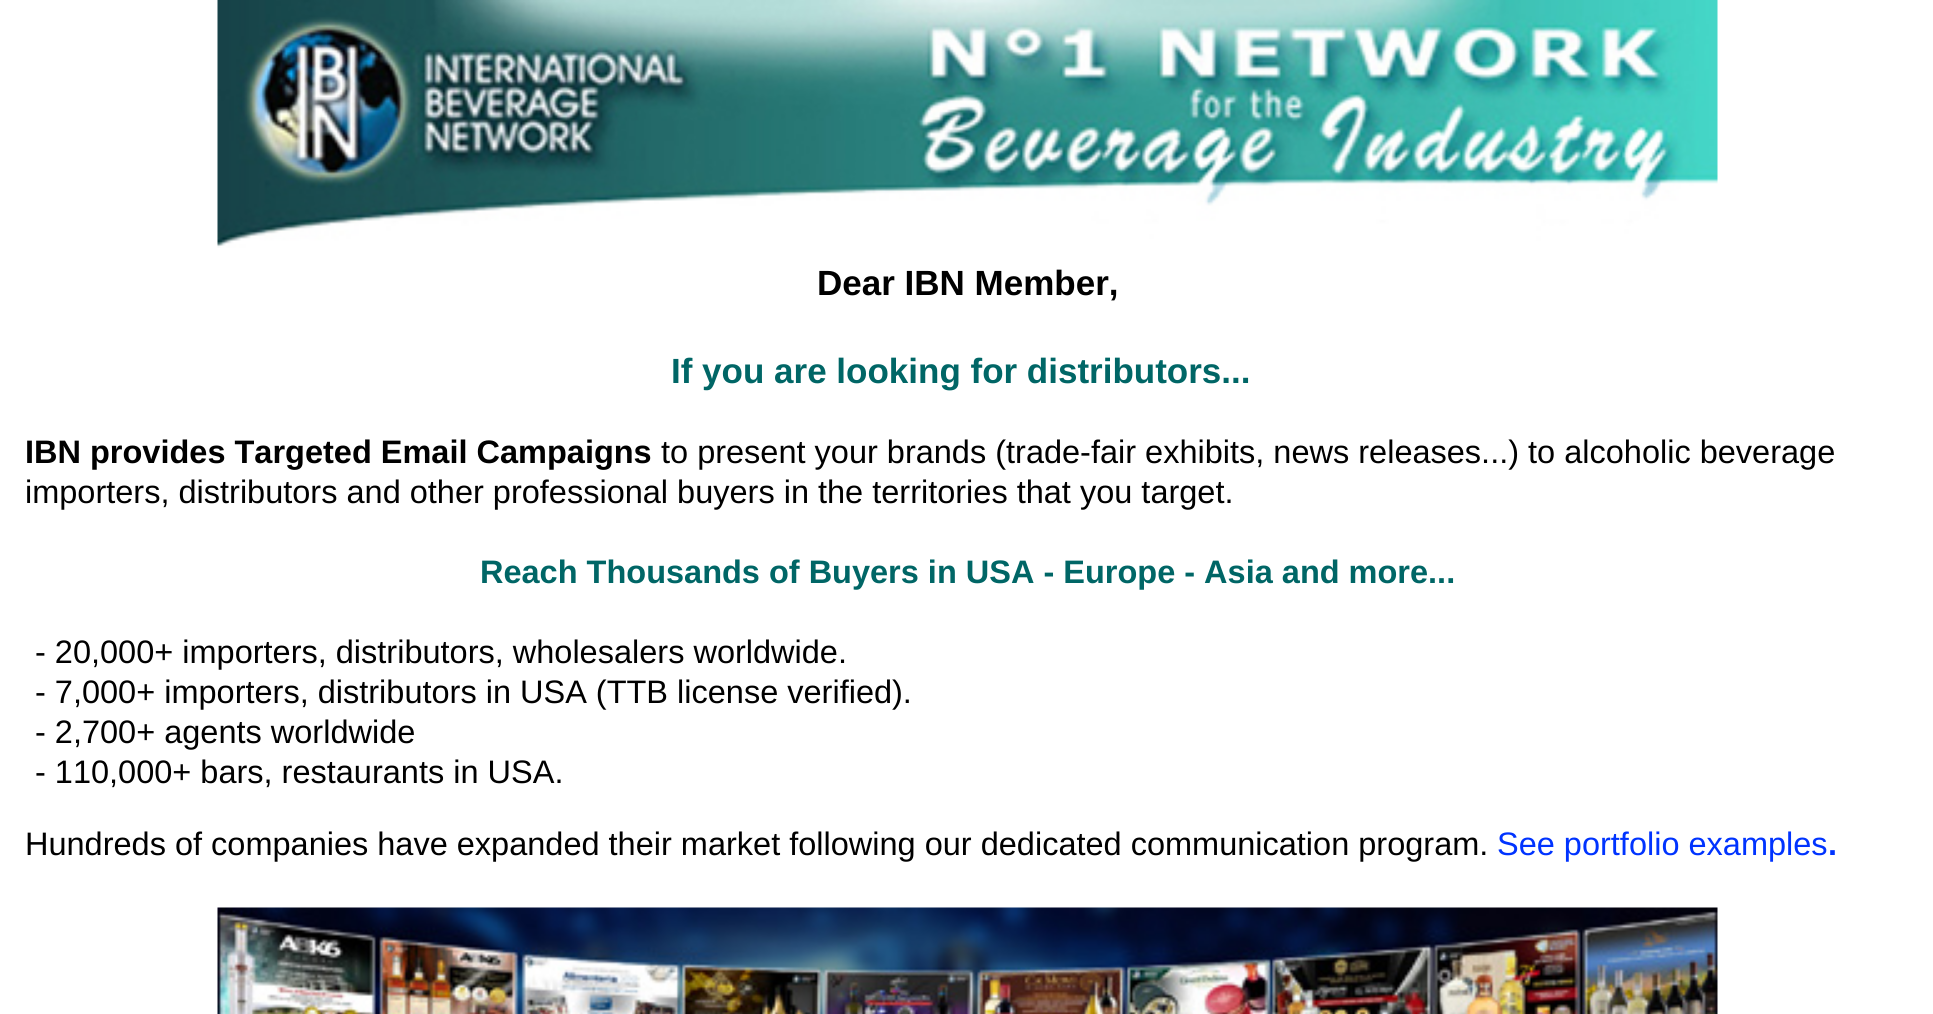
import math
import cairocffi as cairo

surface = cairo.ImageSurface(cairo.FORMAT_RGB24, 1933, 1014)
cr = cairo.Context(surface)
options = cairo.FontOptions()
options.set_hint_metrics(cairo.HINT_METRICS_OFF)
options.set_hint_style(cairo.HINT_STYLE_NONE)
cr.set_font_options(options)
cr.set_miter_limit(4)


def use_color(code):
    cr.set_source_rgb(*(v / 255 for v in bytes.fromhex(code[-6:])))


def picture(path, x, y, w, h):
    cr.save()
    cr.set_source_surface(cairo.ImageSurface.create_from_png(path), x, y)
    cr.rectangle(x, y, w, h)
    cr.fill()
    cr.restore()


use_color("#ffffff")
cr.paint()
picture("img1.png", 217, 0, 1501, 248)
cr.select_font_face("Liberation Sans", cairo.FONT_SLANT_NORMAL, cairo.FONT_WEIGHT_BOLD)
cr.set_font_size(35)
use_color("#000000")
cr.move_to(817, 295)
cr.show_text("Dear IBN Member,")
use_color("#006666")
cr.move_to(671, 383)
cr.show_text("If you are looking for distributors...")
cr.set_font_size(32.5)
use_color("#000000")
cr.move_to(25, 463)
cr.show_text("IBN provides Targeted Email Campaigns")
cr.select_font_face("Liberation Sans")
cr.move_to(661, 463)
cr.show_text("to present your brands (trade-fair exhibits, news releases...) to alcoholic beverage")
cr.move_to(25, 503)
cr.show_text("importers, distributors and other professional buyers in the territories that you target.")
cr.select_font_face("Liberation Sans", cairo.FONT_SLANT_NORMAL, cairo.FONT_WEIGHT_BOLD)
use_color("#006666")
cr.move_to(480, 583)
cr.show_text("Reach Thousands of Buyers in USA - Europe - Asia and more...")
cr.select_font_face("Liberation Sans")
use_color("#000000")
cr.move_to(35, 663)
cr.show_text("- 20,000+ importers, distributors, wholesalers worldwide.")
cr.move_to(35, 703)
cr.show_text("- 7,000+ importers, distributors in USA (TTB license verified).")
cr.move_to(35, 743)
cr.show_text("- 2,700+ agents worldwide")
cr.move_to(35, 783)
cr.show_text("- 110,000+ bars, restaurants in USA.")
cr.move_to(25, 855)
cr.show_text("Hundreds of companies have expanded their market following our dedicated communication program.")
use_color("#0033ff")
cr.move_to(1497, 855)
cr.show_text("See portfolio examples")
cr.select_font_face("Liberation Sans", cairo.FONT_SLANT_NORMAL, cairo.FONT_WEIGHT_BOLD)
cr.move_to(1828, 855)
cr.show_text(".")
picture("img2.png", 217, 907, 1501, 107)
surface.write_to_png("result.png")
